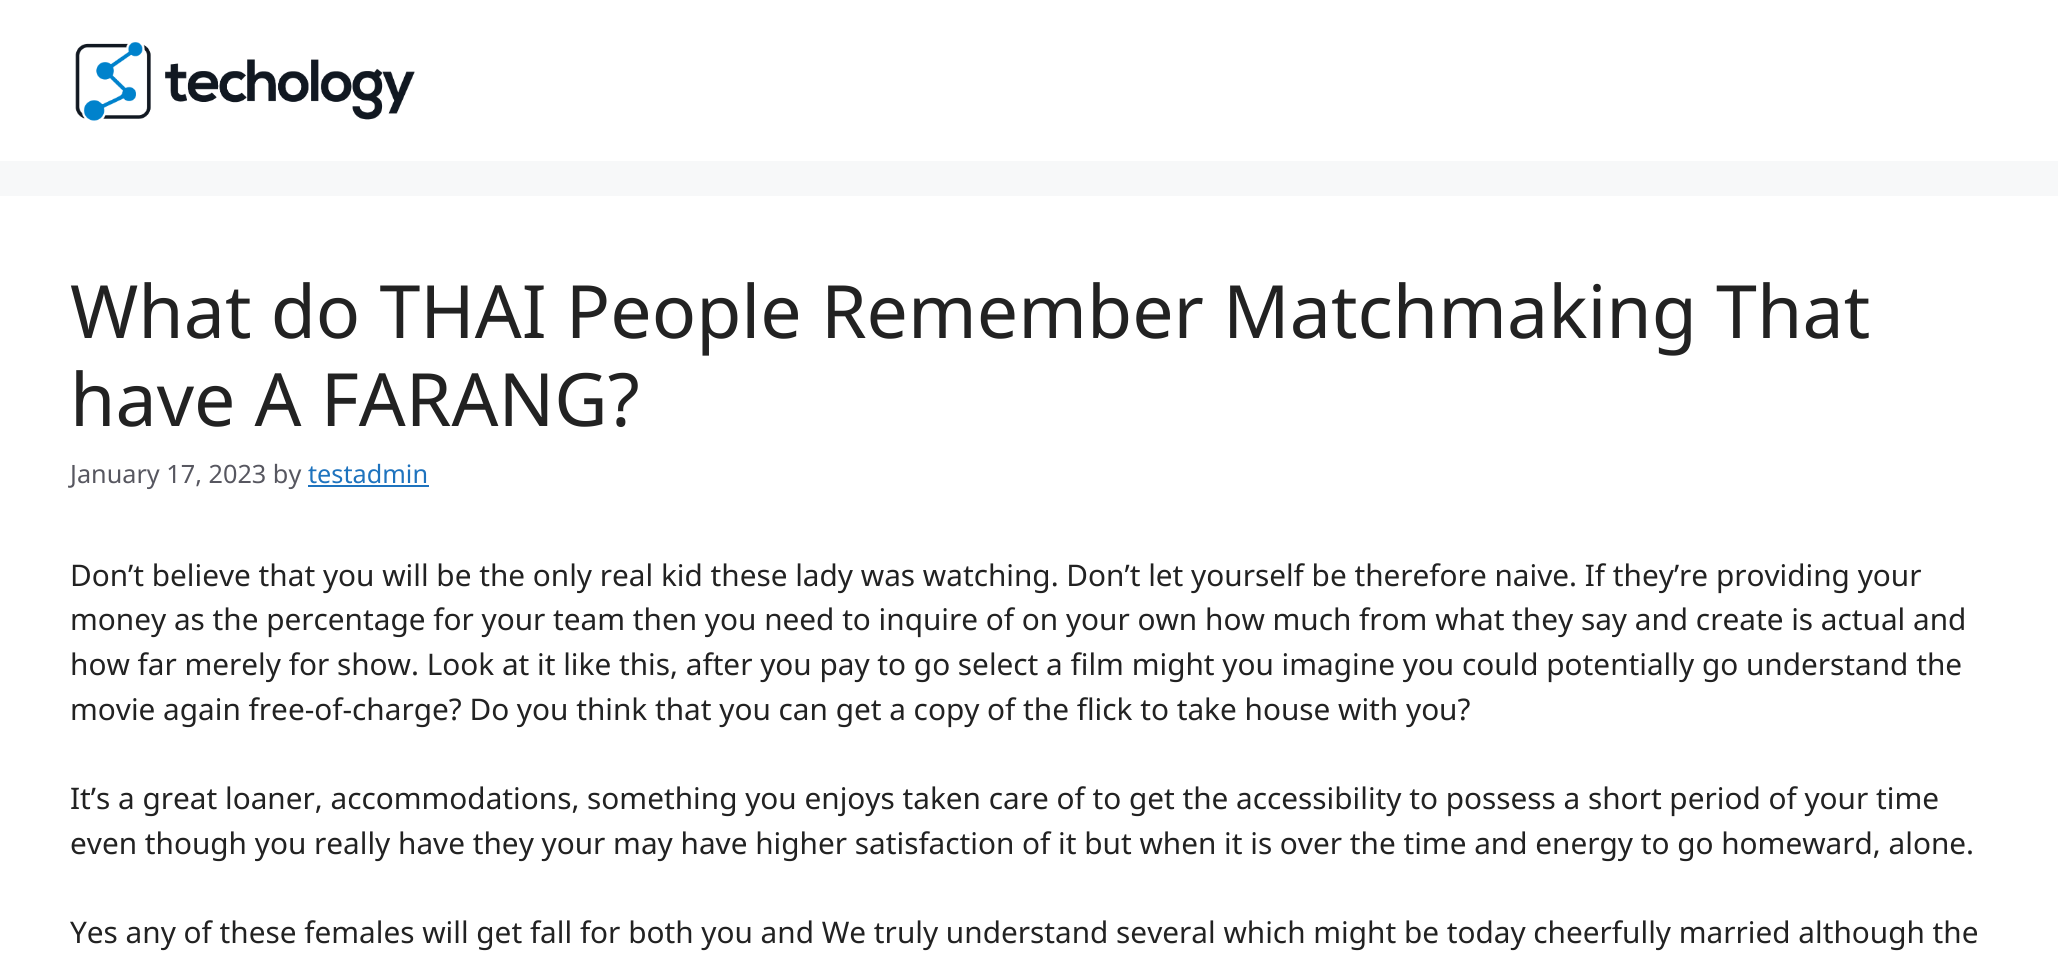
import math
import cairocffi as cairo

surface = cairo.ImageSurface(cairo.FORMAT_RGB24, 2058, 959)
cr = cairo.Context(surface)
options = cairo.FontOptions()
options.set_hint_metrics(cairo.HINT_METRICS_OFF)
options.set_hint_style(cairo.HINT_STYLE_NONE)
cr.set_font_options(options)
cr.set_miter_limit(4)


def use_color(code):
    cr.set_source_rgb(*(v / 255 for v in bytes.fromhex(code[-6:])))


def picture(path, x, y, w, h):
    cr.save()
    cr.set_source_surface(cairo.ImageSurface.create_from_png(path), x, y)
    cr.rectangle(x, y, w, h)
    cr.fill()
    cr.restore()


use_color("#f7f8f9")
cr.paint()
use_color("#ffffff")
cr.rectangle(0, 0, 2058, 161)
cr.fill()
picture("img1.png", 75, 42, 340, 79)
cr.rectangle(0, 196, 2058, 763)
cr.fill()
cr.select_font_face("Noto Sans")
cr.set_font_size(73.5)
use_color("#222222")
cr.move_to(70, 338)
cr.show_text("What do THAI People Remember Matchmaking That")
cr.move_to(70, 426)
cr.show_text("have A FARANG?")
cr.set_font_size(25.25)
use_color("#575760")
cr.move_to(70, 483)
cr.show_text("January 17, 2023 by")
use_color("#1e73be")
cr.move_to(308, 483)
cr.show_text("testadmin")
cr.rectangle(308, 485, 121, 2)
cr.fill()
cr.set_font_size(29.75)
use_color("#222222")
cr.move_to(70, 586)
cr.show_text("Don’t believe that you will be the only real kid these lady was watching. Don’t let yourself be therefore naive. If they’re providing your")
cr.move_to(70, 630)
cr.show_text("money as the percentage for your team then you need to inquire of on your own how much from what they say and create is actual and")
cr.move_to(70, 675)
cr.show_text("how far merely for show. Look at it like this, after you pay to go select a film might you imagine you could potentially go understand the")
cr.move_to(70, 720)
cr.show_text("movie again free-of-charge? Do you think that you can get a copy of the flick to take house with you?")
cr.move_to(70, 809)
cr.show_text("It’s a great loaner, accommodations, something you enjoys taken care of to get the accessibility to possess a short period of your time")
cr.move_to(70, 854)
cr.show_text("even though you really have they your may have higher satisfaction of it but when it is over the time and energy to go homeward, alone.")
cr.move_to(70, 943)
cr.show_text("Yes any of these females will get fall for both you and We truly understand several which might be today cheerfully married although the")
surface.write_to_png("result.png")
